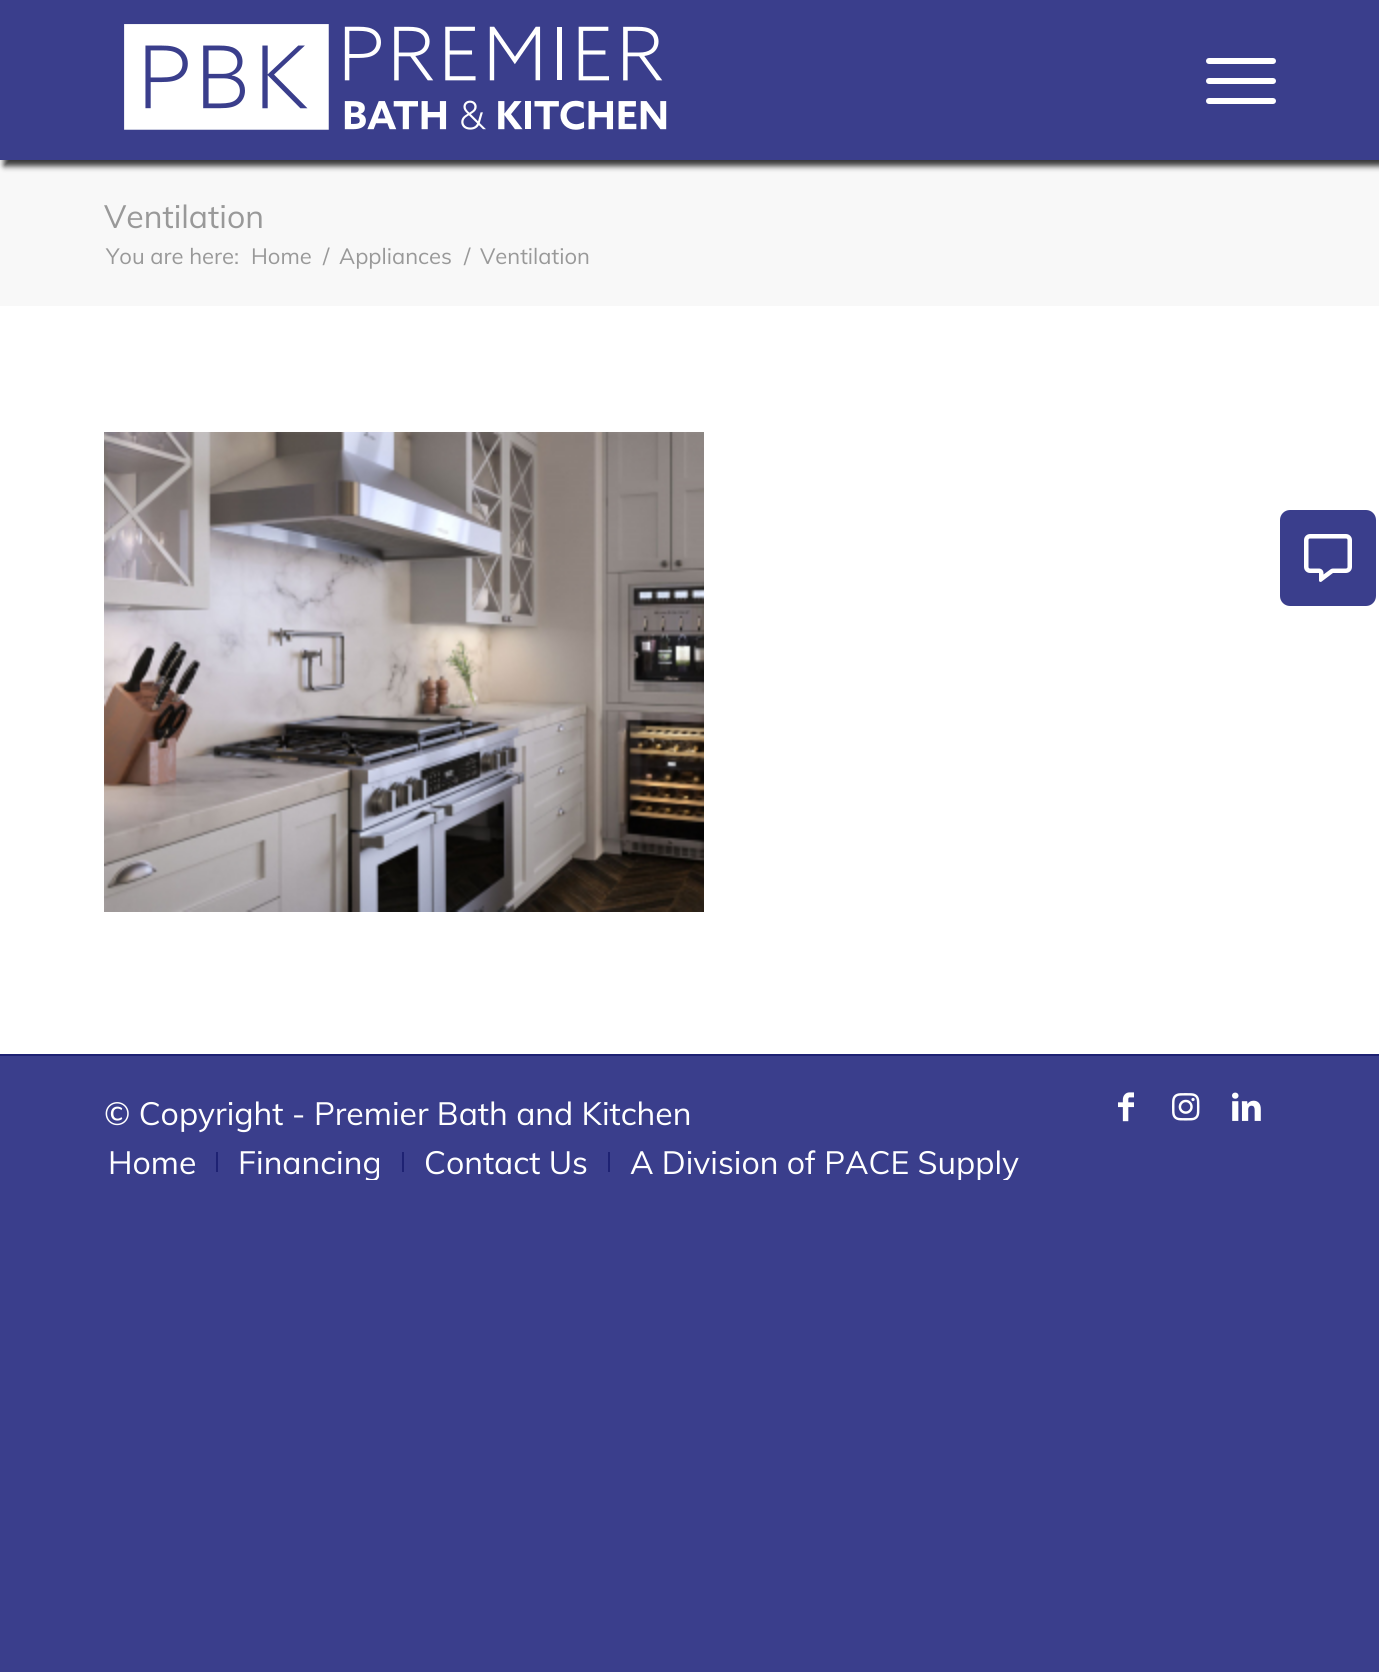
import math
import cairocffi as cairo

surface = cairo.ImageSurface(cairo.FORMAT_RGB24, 1379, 1672)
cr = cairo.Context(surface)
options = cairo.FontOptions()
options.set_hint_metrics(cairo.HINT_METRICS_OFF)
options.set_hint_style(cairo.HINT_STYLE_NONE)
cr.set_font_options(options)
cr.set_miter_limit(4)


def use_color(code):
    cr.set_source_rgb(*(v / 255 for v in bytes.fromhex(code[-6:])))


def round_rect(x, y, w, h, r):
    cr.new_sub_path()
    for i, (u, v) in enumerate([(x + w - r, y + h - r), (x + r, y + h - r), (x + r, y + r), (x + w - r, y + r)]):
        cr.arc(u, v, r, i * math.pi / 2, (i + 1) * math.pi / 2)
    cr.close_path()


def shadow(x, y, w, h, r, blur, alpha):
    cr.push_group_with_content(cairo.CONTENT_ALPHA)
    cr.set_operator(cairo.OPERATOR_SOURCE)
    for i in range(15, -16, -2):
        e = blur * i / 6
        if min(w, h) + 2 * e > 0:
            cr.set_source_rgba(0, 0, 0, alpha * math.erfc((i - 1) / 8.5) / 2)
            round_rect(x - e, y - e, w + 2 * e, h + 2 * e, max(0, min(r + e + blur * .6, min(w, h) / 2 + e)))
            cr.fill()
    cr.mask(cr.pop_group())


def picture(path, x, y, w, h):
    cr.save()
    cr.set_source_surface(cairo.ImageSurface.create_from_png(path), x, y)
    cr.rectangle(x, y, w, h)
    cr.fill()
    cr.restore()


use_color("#3a3e8c")
cr.paint()
use_color("#f8f8f8")
cr.rectangle(0, 160, 1379, 146)
cr.fill()
use_color("#000000")
shadow(4, 6, 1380, 160, 0, 3, 0.78)
use_color("#3a3e8c")
cr.rectangle(0, 0, 1379, 160)
cr.fill()
picture("img1.png", 124, 24, 543, 106)
use_color("#ffffff")
round_rect(1206, 78, 70, 6, 3)
cr.fill()
round_rect(1206, 58, 70, 6, 3)
cr.fill()
round_rect(1206, 98, 70, 6, 3)
cr.fill()
cr.select_font_face("Muli")
cr.set_font_size(32)
use_color("#999999")
cr.move_to(104, 228)
cr.show_text("Ventilation")
cr.set_font_size(22)
cr.move_to(106, 264)
cr.show_text("You are here:")
cr.move_to(251, 264)
cr.show_text("Home")
cr.move_to(323, 264)
cr.show_text("/")
cr.move_to(339, 264)
cr.show_text("Appliances")
cr.move_to(464, 264)
cr.show_text("/")
cr.move_to(480, 264)
cr.show_text("Ventilation")
use_color("#ffffff")
cr.rectangle(0, 306, 1379, 748)
cr.fill()
picture("img2.png", 104, 432, 600, 480)
use_color("#1e2273")
cr.rectangle(0, 1054, 1379, 2)
cr.fill()
cr.set_font_size(32)
use_color("#ffffff")
cr.move_to(104, 1125)
cr.show_text("© Copyright - Premier Bath and Kitchen")
picture("img3.png", 1118, 1092, 16, 30)
picture("img4.png", 1172, 1093, 28, 28)
picture("img5.png", 1232, 1092, 29, 29)
cr.move_to(108, 1174)
cr.show_text("Home")
use_color("#1e2273")
cr.rectangle(216, 1152, 2, 20)
cr.fill()
cr.save()
cr.rectangle(74, 1140, 1172, 40)
cr.clip()
use_color("#ffffff")
cr.move_to(238, 1174)
cr.show_text("Financing")
cr.restore()
cr.rectangle(402, 1152, 2, 20)
cr.fill()
use_color("#ffffff")
cr.move_to(424, 1174)
cr.show_text("Contact Us")
use_color("#1e2273")
cr.rectangle(608, 1152, 2, 20)
cr.fill()
cr.save()
cr.rectangle(74, 1140, 1172, 40)
cr.clip()
use_color("#ffffff")
cr.move_to(630, 1174)
cr.show_text("A Division of PACE Supply")
cr.restore()
use_color("#3a3e8c")
round_rect(1280, 510, 96, 96, 10)
cr.fill()
picture("img6.png", 1304, 534, 48, 48)
surface.write_to_png("result.png")
